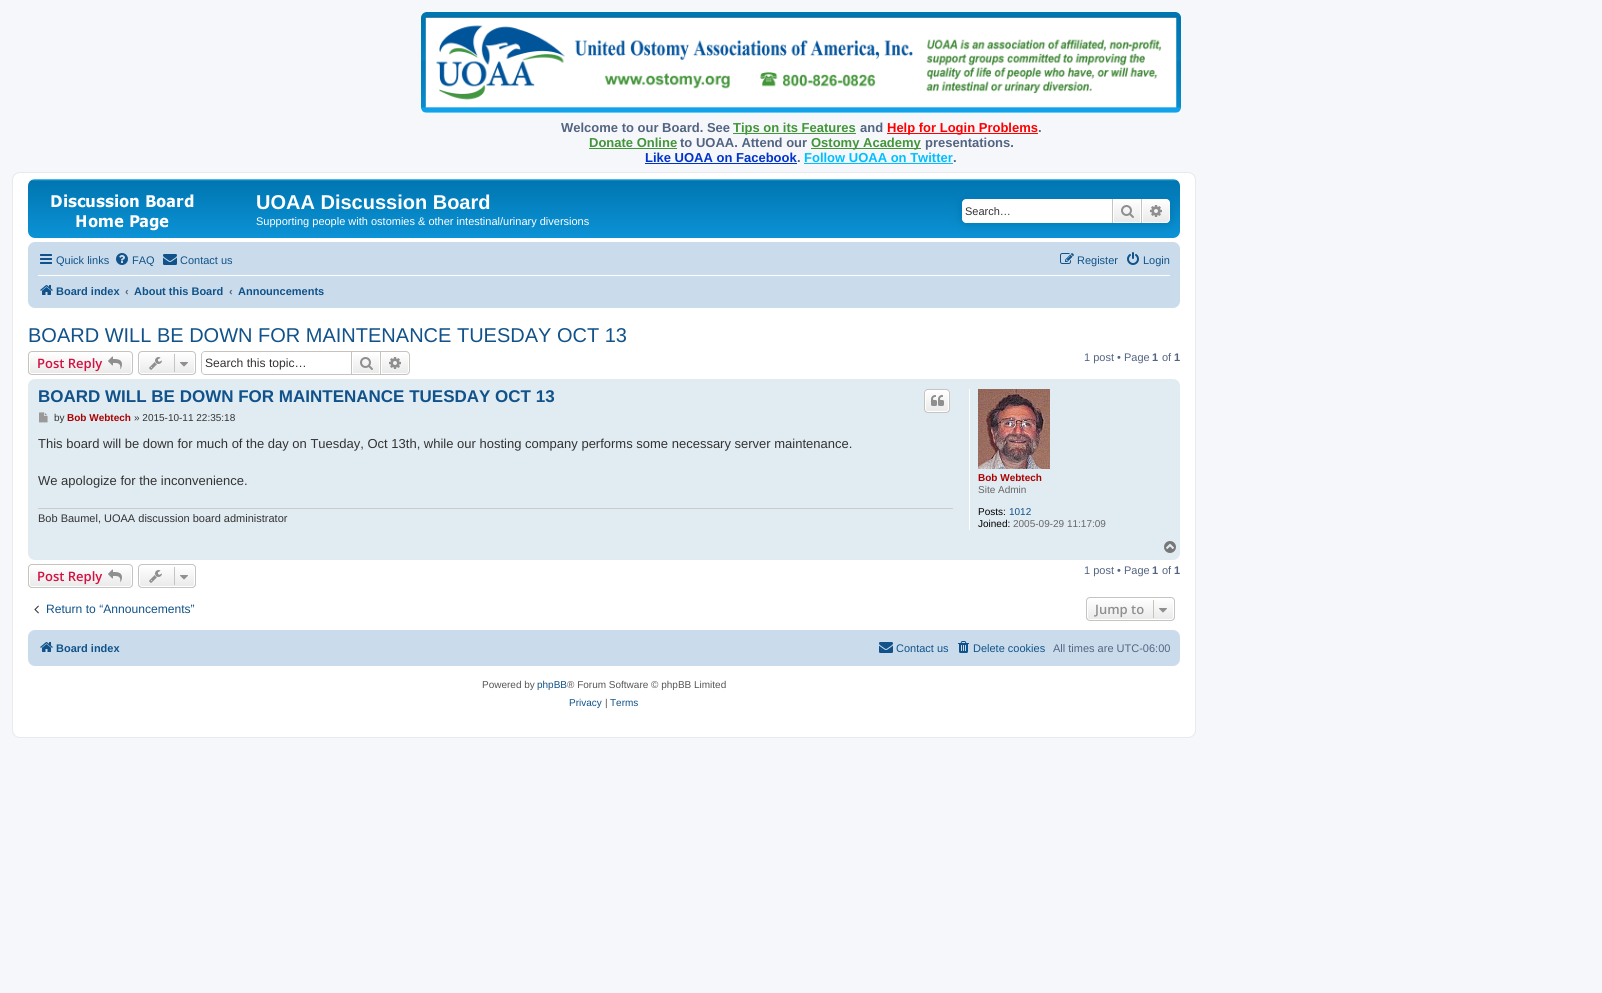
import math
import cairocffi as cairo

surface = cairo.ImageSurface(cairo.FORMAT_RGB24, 1602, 993)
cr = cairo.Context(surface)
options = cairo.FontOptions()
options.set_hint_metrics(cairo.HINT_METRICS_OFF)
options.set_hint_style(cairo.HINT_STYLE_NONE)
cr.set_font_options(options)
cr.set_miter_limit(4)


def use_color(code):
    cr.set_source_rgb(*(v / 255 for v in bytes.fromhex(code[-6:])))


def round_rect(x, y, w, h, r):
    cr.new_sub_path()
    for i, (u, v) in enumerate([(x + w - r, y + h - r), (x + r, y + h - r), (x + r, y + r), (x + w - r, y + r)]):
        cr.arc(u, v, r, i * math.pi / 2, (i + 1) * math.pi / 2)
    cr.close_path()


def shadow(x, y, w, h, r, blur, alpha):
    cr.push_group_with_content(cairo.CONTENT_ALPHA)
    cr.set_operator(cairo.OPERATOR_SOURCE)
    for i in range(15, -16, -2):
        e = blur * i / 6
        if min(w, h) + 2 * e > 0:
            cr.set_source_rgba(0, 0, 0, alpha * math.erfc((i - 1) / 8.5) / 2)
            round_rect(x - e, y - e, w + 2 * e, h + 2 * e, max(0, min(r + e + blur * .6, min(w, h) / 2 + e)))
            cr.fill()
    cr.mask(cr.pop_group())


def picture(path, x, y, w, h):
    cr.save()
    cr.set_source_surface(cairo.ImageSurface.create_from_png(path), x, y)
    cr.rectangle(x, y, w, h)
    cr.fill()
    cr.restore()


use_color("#f5f7fa")
cr.paint()
picture("img1.png", 421, 12, 760, 101)
cr.select_font_face("Liberation Sans", cairo.FONT_SLANT_NORMAL, cairo.FONT_WEIGHT_BOLD)
cr.set_font_size(13)
use_color("#536482")
cr.move_to(561, 132)
cr.show_text("Welcome to our Board. See")
use_color("#439539")
cr.rectangle(733, 133, 123, 1)
cr.fill()
cr.move_to(733, 132)
cr.show_text("Tips on its Features")
use_color("#536482")
cr.move_to(860, 132)
cr.show_text("and")
use_color("#ff0000")
cr.rectangle(887, 133, 151, 1)
cr.fill()
cr.move_to(887, 132)
cr.show_text("Help for Login Problems")
use_color("#536482")
cr.move_to(1038, 132)
cr.show_text(".")
use_color("#439539")
cr.move_to(589, 147)
cr.show_text("Donate Online")
cr.rectangle(589, 148, 88, 1)
cr.fill()
use_color("#536482")
cr.move_to(680, 147)
cr.show_text("to UOAA. Attend our")
use_color("#439539")
cr.rectangle(811, 148, 110, 1)
cr.fill()
cr.move_to(811, 147)
cr.show_text("Ostomy Academy")
use_color("#536482")
cr.move_to(925, 147)
cr.show_text("presentations.")
use_color("#0033cc")
cr.move_to(645, 162)
cr.show_text("Like UOAA on Facebook")
cr.rectangle(645, 163, 152, 1)
cr.fill()
use_color("#536482")
cr.move_to(797, 162)
cr.show_text(".")
use_color("#00bfff")
cr.move_to(804, 162)
cr.show_text("Follow UOAA on Twitter")
cr.rectangle(804, 163, 149, 1)
cr.fill()
use_color("#536482")
cr.move_to(953, 162)
cr.show_text(".")
use_color("#ffffff")
round_rect(12.5, 172.5, 1183, 565, 7.5)
cr.fill_preserve()
use_color("#e6e9ed")
cr.set_line_width(1)
cr.stroke()
gradient = cairo.LinearGradient(604, 179, 604, 271)
gradient.add_color_stop_rgba(0, 0.416, 0.808, 1, 1)
gradient.add_color_stop_rgba(0.02, 0, 0.463, 0.694, 1)
gradient.add_color_stop_rgba(1, 0.071, 0.639, 0.922, 1)
cr.set_source(gradient)
round_rect(28, 179, 1152, 59, 7)
cr.fill()
picture("img2.png", 51, 194, 143, 37)
cr.set_font_size(20)
use_color("#ffffff")
cr.move_to(256, 209)
cr.show_text("UOAA Discussion Board")
cr.select_font_face("Liberation Sans")
cr.set_font_size(11)
cr.move_to(256, 225)
cr.show_text("Supporting people with ostomies & other intestinal/urinary diversions")
use_color("#0075b0")
shadow(962, 199, 208, 24, 4, 5, 1)
use_color("#ffffff")
cr.new_path()
cr.move_to(966, 199)
cr.line_to(1112, 199)
cr.line_to(1112, 223)
cr.line_to(966, 223)
cr.curve_to(964, 223, 962, 221, 962, 219)
cr.line_to(962, 203)
cr.curve_to(962, 201, 964, 199, 966, 199)
cr.close_path()
cr.fill()
use_color("#333333")
cr.move_to(965, 215)
cr.show_text("Search…")
gradient = cairo.LinearGradient(1127, 199, 1127, 223)
gradient.add_color_stop_rgba(0, 1, 1, 1, 1)
gradient.add_color_stop_rgba(1, 0.914, 0.914, 0.914, 1)
cr.set_source(gradient)
cr.rectangle(1114, 200, 26, 22)
cr.fill()
cr.rectangle(1113.5, 199.5, 27, 23)
use_color("#ffffff")
cr.stroke()
use_color("#c7c3bf")
cr.rectangle(1141, 199, 1, 24)
cr.fill()
cr.rectangle(1112, 199, 1, 24)
cr.fill()
picture("img3.png", 1121, 205, 13, 13)
gradient = cairo.LinearGradient(1156, 199, 1156, 223)
gradient.add_color_stop_rgba(0, 1, 1, 1, 1)
gradient.add_color_stop_rgba(1, 0.914, 0.914, 0.914, 1)
cr.set_source(gradient)
cr.new_path()
cr.move_to(1142.5, 199.5)
cr.line_to(1166, 199.5)
cr.curve_to(1168, 199.5, 1169.5, 201, 1169.5, 203)
cr.line_to(1169.5, 219)
cr.curve_to(1169.5, 221, 1168, 222.5, 1166, 222.5)
cr.line_to(1142.5, 222.5)
cr.close_path()
cr.fill_preserve()
use_color("#ffffff")
cr.stroke()
picture("img4.png", 1150, 205, 12, 12)
use_color("#cadceb")
round_rect(28, 242, 1152, 66, 7)
cr.fill()
picture("img5.png", 40, 254, 12, 10)
use_color("#105289")
cr.move_to(56, 264)
cr.show_text("Quick links")
picture("img6.png", 116, 253, 12, 12)
cr.move_to(132, 264)
cr.show_text("FAQ")
picture("img7.png", 163, 254, 14, 11)
cr.move_to(180, 264)
cr.show_text("Contact us")
picture("img8.png", 1060, 253, 14, 11)
cr.move_to(1077, 264)
cr.show_text("Register")
picture("img9.png", 1127, 252, 12, 13)
cr.move_to(1143, 264)
cr.show_text("Login")
use_color("#ffffff")
cr.rectangle(38, 275, 1132, 1)
cr.fill()
picture("img10.png", 40, 285, 13, 10)
cr.select_font_face("Liberation Sans", cairo.FONT_SLANT_NORMAL, cairo.FONT_WEIGHT_BOLD)
use_color("#105289")
cr.move_to(56, 295)
cr.show_text("Board index")
use_color("#536482")
cr.move_to(125, 295)
cr.show_text("‹")
use_color("#105289")
cr.move_to(134, 295)
cr.show_text("About this Board")
use_color("#536482")
cr.move_to(229, 295)
cr.show_text("‹")
use_color("#105289")
cr.move_to(238, 295)
cr.show_text("Announcements")
cr.select_font_face("Liberation Sans")
cr.set_font_size(20)
cr.move_to(28, 342)
cr.show_text("BOARD WILL BE DOWN FOR MAINTENANCE TUESDAY OCT 13")
cr.save()
round_rect(28, 351, 105, 24, 4)
cr.clip()
gradient = cairo.LinearGradient(81, 352, 81, 374)
gradient.add_color_stop_rgba(0, 1, 1, 1, 1)
gradient.add_color_stop_rgba(1, 0.914, 0.914, 0.914, 1)
cr.set_source(gradient)
cr.rectangle(28, 352, 105, 22)
cr.fill()
cr.restore()
round_rect(29.5, 352.5, 102, 21, 2.5)
use_color("#ffffff")
cr.stroke()
round_rect(28.5, 351.5, 104, 23, 3.5)
use_color("#c7c3bf")
cr.stroke()
cr.select_font_face("Open Sans SemiBold")
cr.set_font_size(13)
use_color("#d31141")
cr.move_to(37, 368)
cr.show_text("Post Reply")
picture("img11.png", 108, 356, 14, 13)
cr.save()
round_rect(138, 351, 58, 24, 4)
cr.clip()
gradient = cairo.LinearGradient(167, 352, 167, 374)
gradient.add_color_stop_rgba(0, 1, 1, 1, 1)
gradient.add_color_stop_rgba(1, 0.914, 0.914, 0.914, 1)
cr.set_source(gradient)
cr.rectangle(138, 352, 58, 22)
cr.fill()
cr.restore()
round_rect(139.5, 352.5, 55, 21, 2.5)
use_color("#ffffff")
cr.stroke()
round_rect(138.5, 351.5, 57, 23, 3.5)
use_color("#c7c3bf")
cr.stroke()
picture("img12.png", 149, 357, 13, 13)
cr.rectangle(174, 354, 1, 18)
cr.fill()
picture("img13.png", 180, 362, 8, 5)
cr.set_fill_rule(cairo.FILL_RULE_EVEN_ODD)
cr.new_path()
cr.move_to(205, 351)
cr.line_to(351, 351)
cr.line_to(351, 375)
cr.line_to(205, 375)
cr.curve_to(203, 375, 201, 373, 201, 371)
cr.line_to(201, 355)
cr.curve_to(201, 353, 203, 351, 205, 351)
cr.close_path()
cr.move_to(205, 352)
cr.line_to(351, 352)
cr.line_to(351, 374)
cr.line_to(205, 374)
cr.curve_to(203, 374, 202, 373, 202, 371)
cr.line_to(202, 355)
cr.curve_to(202, 353, 203, 352, 205, 352)
cr.close_path()
cr.fill()
cr.select_font_face("Liberation Sans")
cr.set_font_size(12.1)
use_color("#333333")
cr.move_to(205, 367)
cr.show_text("Search this topic…")
gradient = cairo.LinearGradient(366, 352, 366, 374)
gradient.add_color_stop_rgba(0, 1, 1, 1, 1)
gradient.add_color_stop_rgba(1, 0.914, 0.914, 0.914, 1)
cr.set_source(gradient)
cr.rectangle(353, 355, 26, 18)
cr.fill()
cr.rectangle(351.5, 351.5, 29, 23)
use_color("#c7c3bf")
cr.stroke()
picture("img14.png", 360, 357, 13, 13)
gradient = cairo.LinearGradient(395, 352, 395, 374)
gradient.add_color_stop_rgba(0, 1, 1, 1, 1)
gradient.add_color_stop_rgba(1, 0.914, 0.914, 0.914, 1)
cr.set_source(gradient)
cr.new_path()
cr.move_to(381.5, 352.5)
cr.line_to(406, 352.5)
cr.curve_to(407.5, 352.5, 408.5, 353.5, 408.5, 355)
cr.line_to(408.5, 371)
cr.curve_to(408.5, 372.5, 407.5, 373.5, 406, 373.5)
cr.line_to(381.5, 373.5)
cr.close_path()
cr.fill_preserve()
use_color("#ffffff")
cr.stroke()
use_color("#c7c3bf")
cr.new_path()
cr.move_to(381, 351)
cr.line_to(406, 351)
cr.curve_to(408, 351, 410, 353, 410, 355)
cr.line_to(410, 371)
cr.curve_to(410, 373, 408, 375, 406, 375)
cr.line_to(381, 375)
cr.close_path()
cr.move_to(381, 352)
cr.line_to(406, 352)
cr.curve_to(407.5, 352, 409, 353.5, 409, 355)
cr.line_to(409, 371)
cr.curve_to(409, 372.5, 407.5, 374, 406, 374)
cr.line_to(381, 374)
cr.close_path()
cr.fill()
picture("img15.png", 389, 357, 12, 12)
cr.set_font_size(11)
use_color("#536482")
cr.move_to(1084, 361)
cr.show_text("1 post • Page")
cr.select_font_face("Liberation Sans", cairo.FONT_SLANT_NORMAL, cairo.FONT_WEIGHT_BOLD)
cr.move_to(1152, 361)
cr.show_text("1")
cr.select_font_face("Liberation Sans")
cr.move_to(1162, 361)
cr.show_text("of")
cr.select_font_face("Liberation Sans", cairo.FONT_SLANT_NORMAL, cairo.FONT_WEIGHT_BOLD)
cr.move_to(1174, 361)
cr.show_text("1")
use_color("#e1ebf2")
round_rect(28, 379, 1152, 181, 7)
cr.fill()
cr.set_font_size(17)
use_color("#105289")
cr.move_to(38, 402)
cr.show_text("BOARD WILL BE DOWN FOR MAINTENANCE TUESDAY OCT 13")
cr.save()
cr.set_fill_rule(cairo.FILL_RULE_WINDING)
round_rect(924, 389, 26, 24, 4)
cr.clip()
gradient = cairo.LinearGradient(937, 390, 937, 412)
gradient.add_color_stop_rgba(0, 1, 1, 1, 1)
gradient.add_color_stop_rgba(1, 0.914, 0.914, 0.914, 1)
cr.set_source(gradient)
cr.rectangle(924, 390, 26, 22)
cr.fill()
cr.restore()
round_rect(925.5, 390.5, 23, 21, 2.5)
use_color("#ffffff")
cr.stroke()
round_rect(924.5, 389.5, 25, 23, 3.5)
use_color("#c7c3bf")
cr.stroke()
picture("img16.png", 931, 395, 13, 11)
picture("img17.png", 39, 412, 9, 11)
cr.select_font_face("Liberation Sans")
cr.set_font_size(10)
use_color("#333333")
cr.move_to(54, 421)
cr.show_text("by")
cr.select_font_face("Liberation Sans", cairo.FONT_SLANT_NORMAL, cairo.FONT_WEIGHT_BOLD)
use_color("#aa0000")
cr.move_to(67, 421)
cr.show_text("Bob Webtech")
cr.select_font_face("Liberation Sans")
use_color("#333333")
cr.move_to(134, 421)
cr.show_text("» 2015-10-11 22:35:18")
cr.set_font_size(13)
cr.move_to(38, 448)
cr.show_text("This board will be down for much of the day on Tuesday, Oct 13th, while our hosting company performs some necessary server maintenance.")
cr.move_to(38, 485)
cr.show_text("We apologize for the inconvenience.")
use_color("#cccccc")
cr.rectangle(38, 508, 915, 1)
cr.fill()
cr.set_font_size(11)
use_color("#333333")
cr.move_to(38, 522)
cr.show_text("Bob Baumel, UOAA discussion board administrator")
use_color("#ffffff")
cr.rectangle(969, 389, 1, 141)
cr.fill()
picture("img18.png", 978, 389, 72, 80)
cr.select_font_face("Liberation Sans", cairo.FONT_SLANT_NORMAL, cairo.FONT_WEIGHT_BOLD)
cr.set_font_size(10)
use_color("#aa0000")
cr.move_to(978, 481)
cr.show_text("Bob Webtech")
cr.select_font_face("Liberation Sans")
use_color("#666666")
cr.move_to(978, 493)
cr.show_text("Site Admin")
use_color("#000000")
cr.move_to(978, 515)
cr.show_text("Posts:")
use_color("#105289")
cr.move_to(1009, 515)
cr.show_text("1012")
use_color("#000000")
cr.move_to(978, 527)
cr.show_text("Joined:")
use_color("#666666")
cr.move_to(1013, 527)
cr.show_text("2005-09-29 11:17:09")
picture("img19.png", 1164, 541, 12, 12)
cr.save()
cr.set_fill_rule(cairo.FILL_RULE_WINDING)
round_rect(28, 564, 105, 24, 4)
cr.clip()
gradient = cairo.LinearGradient(81, 565, 81, 587)
gradient.add_color_stop_rgba(0, 1, 1, 1, 1)
gradient.add_color_stop_rgba(1, 0.914, 0.914, 0.914, 1)
cr.set_source(gradient)
cr.rectangle(28, 565, 105, 22)
cr.fill()
cr.restore()
round_rect(29.5, 565.5, 102, 21, 2.5)
use_color("#ffffff")
cr.stroke()
round_rect(28.5, 564.5, 104, 23, 3.5)
use_color("#c7c3bf")
cr.stroke()
cr.select_font_face("Open Sans SemiBold")
cr.set_font_size(13)
use_color("#d31141")
cr.move_to(37, 581)
cr.show_text("Post Reply")
picture("img11.png", 108, 569, 14, 13)
cr.save()
cr.set_fill_rule(cairo.FILL_RULE_WINDING)
round_rect(138, 564, 58, 24, 4)
cr.clip()
gradient = cairo.LinearGradient(167, 565, 167, 587)
gradient.add_color_stop_rgba(0, 1, 1, 1, 1)
gradient.add_color_stop_rgba(1, 0.914, 0.914, 0.914, 1)
cr.set_source(gradient)
cr.rectangle(138, 565, 58, 22)
cr.fill()
cr.restore()
round_rect(139.5, 565.5, 55, 21, 2.5)
use_color("#ffffff")
cr.stroke()
round_rect(138.5, 564.5, 57, 23, 3.5)
use_color("#c7c3bf")
cr.stroke()
picture("img12.png", 149, 570, 13, 13)
cr.rectangle(174, 567, 1, 18)
cr.fill()
picture("img13.png", 180, 575, 8, 5)
cr.select_font_face("Liberation Sans")
cr.set_font_size(11)
use_color("#536482")
cr.move_to(1084, 574)
cr.show_text("1 post • Page")
cr.select_font_face("Liberation Sans", cairo.FONT_SLANT_NORMAL, cairo.FONT_WEIGHT_BOLD)
cr.move_to(1152, 574)
cr.show_text("1")
cr.select_font_face("Liberation Sans")
cr.move_to(1162, 574)
cr.show_text("of")
cr.select_font_face("Liberation Sans", cairo.FONT_SLANT_NORMAL, cairo.FONT_WEIGHT_BOLD)
cr.move_to(1174, 574)
cr.show_text("1")
picture("img20.png", 34, 605, 5, 9)
cr.select_font_face("Liberation Sans")
cr.set_font_size(12.1)
use_color("#105289")
cr.move_to(46, 613)
cr.show_text("Return to “Announcements”")
cr.save()
cr.set_fill_rule(cairo.FILL_RULE_WINDING)
round_rect(1086, 597, 89, 24, 4)
cr.clip()
gradient = cairo.LinearGradient(1131, 598, 1131, 620)
gradient.add_color_stop_rgba(0, 1, 1, 1, 1)
gradient.add_color_stop_rgba(1, 0.914, 0.914, 0.914, 1)
cr.set_source(gradient)
cr.rectangle(1086, 598, 89, 22)
cr.fill()
cr.restore()
round_rect(1087.5, 598.5, 86, 21, 2.5)
use_color("#ffffff")
cr.stroke()
round_rect(1086.5, 597.5, 88, 23, 3.5)
use_color("#c7c3bf")
cr.stroke()
cr.select_font_face("Open Sans SemiBold")
cr.set_font_size(13)
use_color("#8f8f8f")
cr.move_to(1095, 614)
cr.show_text("Jump to")
use_color("#c7c3bf")
cr.rectangle(1153, 600, 1, 18)
cr.fill()
picture("img13.png", 1159, 608, 8, 5)
use_color("#cadceb")
round_rect(28, 630, 1152, 36, 7)
cr.fill()
picture("img10.png", 40, 642, 13, 10)
cr.select_font_face("Liberation Sans", cairo.FONT_SLANT_NORMAL, cairo.FONT_WEIGHT_BOLD)
cr.set_font_size(11)
use_color("#105289")
cr.move_to(56, 652)
cr.show_text("Board index")
picture("img7.png", 879, 642, 14, 11)
cr.select_font_face("Liberation Sans")
cr.move_to(896, 652)
cr.show_text("Contact us")
picture("img21.png", 958, 641, 11, 12)
cr.move_to(973, 652)
cr.show_text("Delete cookies")
use_color("#536482")
cr.move_to(1053, 652)
cr.show_text("All times are UTC-06:00")
cr.set_font_size(10)
use_color("#555555")
cr.move_to(482, 688)
cr.show_text("Powered by")
use_color("#105289")
cr.move_to(537, 688)
cr.show_text("phpBB")
use_color("#555555")
cr.move_to(567, 688)
cr.show_text("® Forum Software © phpBB Limited")
use_color("#105289")
cr.move_to(569, 706)
cr.show_text("Privacy")
use_color("#555555")
cr.move_to(605, 706)
cr.show_text("|")
use_color("#105289")
cr.move_to(610, 706)
cr.show_text("Terms")
surface.write_to_png("result.png")
